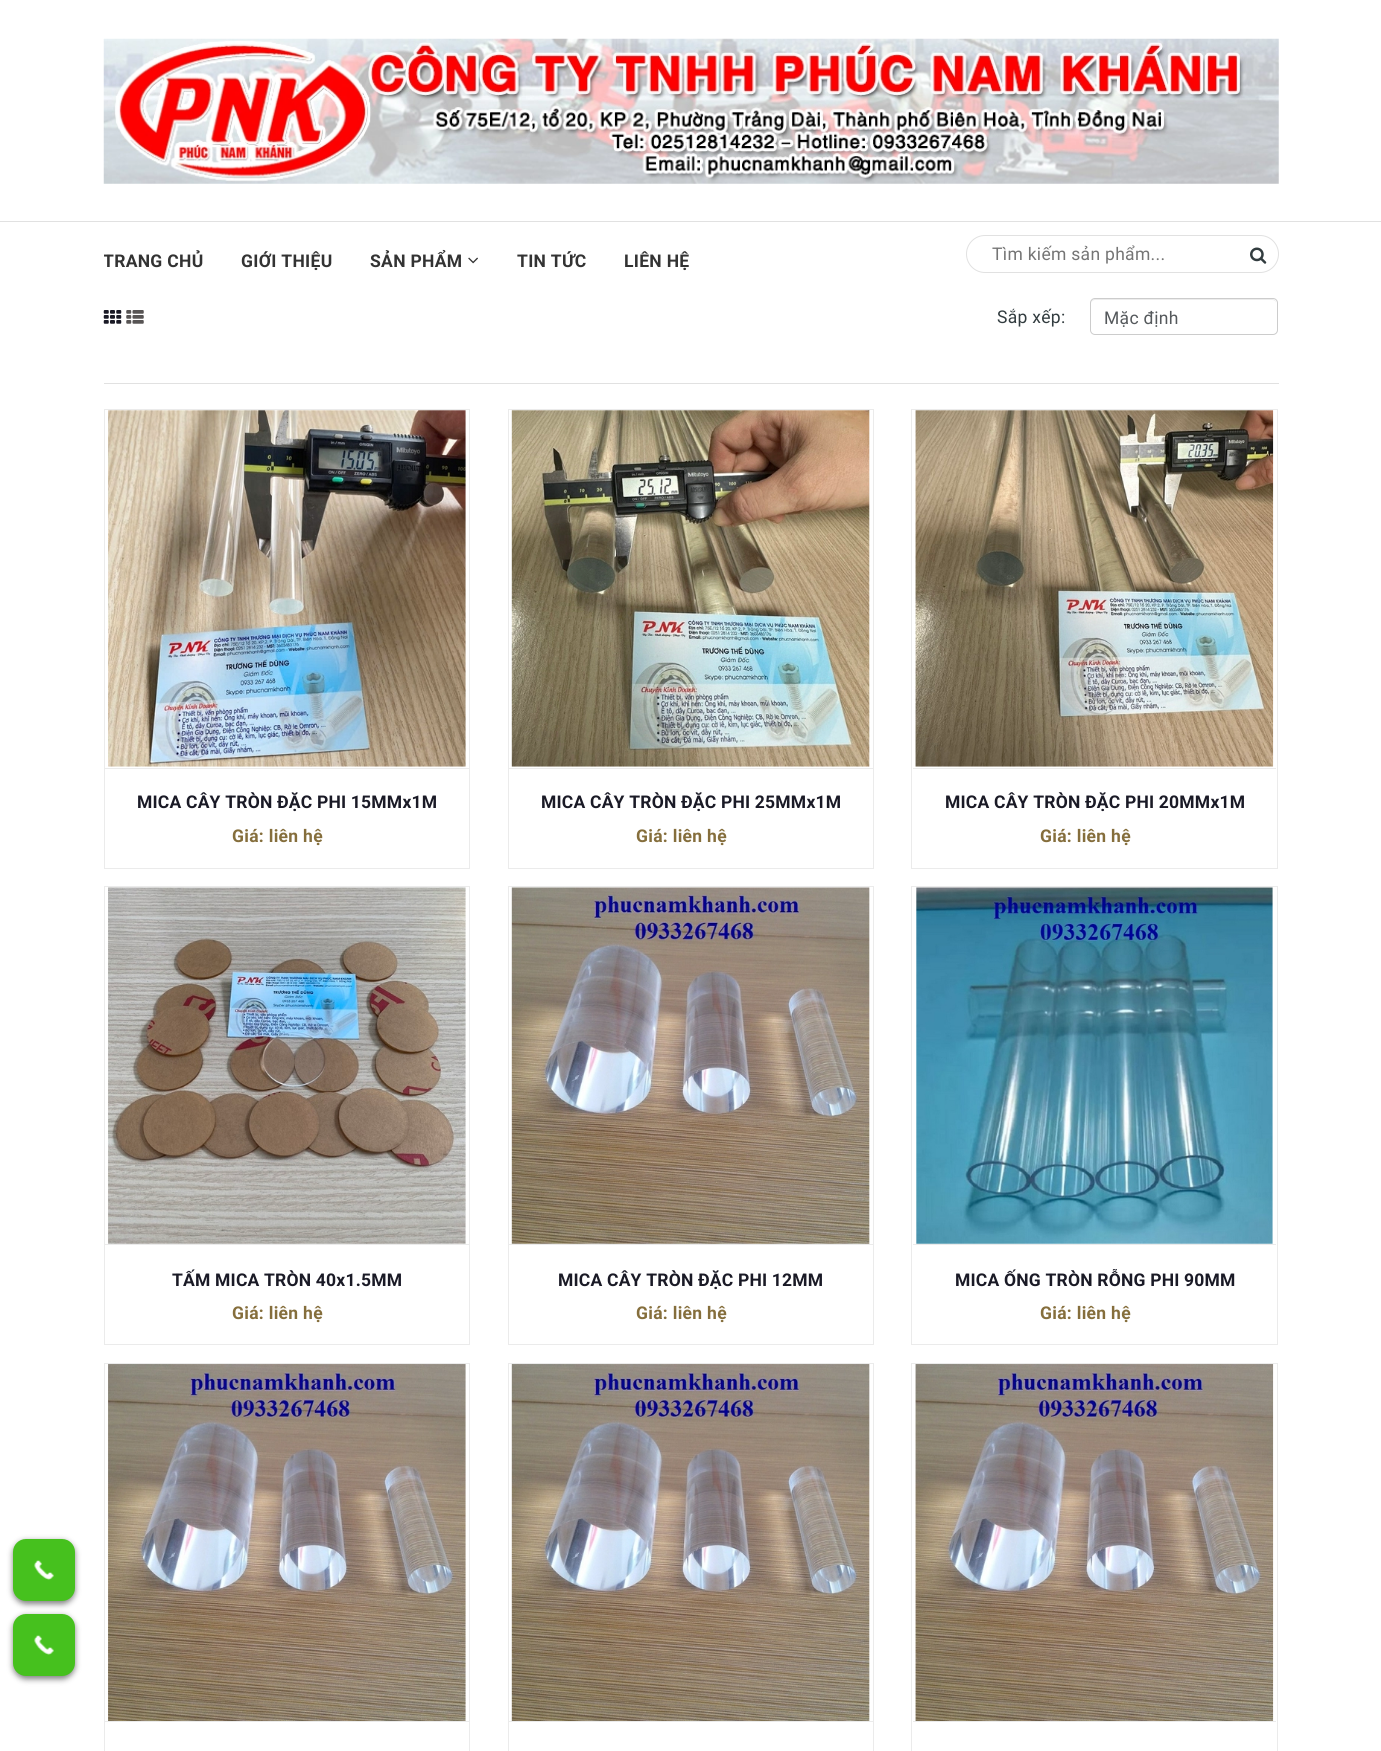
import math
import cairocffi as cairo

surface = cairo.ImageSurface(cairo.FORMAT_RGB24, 1381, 1751)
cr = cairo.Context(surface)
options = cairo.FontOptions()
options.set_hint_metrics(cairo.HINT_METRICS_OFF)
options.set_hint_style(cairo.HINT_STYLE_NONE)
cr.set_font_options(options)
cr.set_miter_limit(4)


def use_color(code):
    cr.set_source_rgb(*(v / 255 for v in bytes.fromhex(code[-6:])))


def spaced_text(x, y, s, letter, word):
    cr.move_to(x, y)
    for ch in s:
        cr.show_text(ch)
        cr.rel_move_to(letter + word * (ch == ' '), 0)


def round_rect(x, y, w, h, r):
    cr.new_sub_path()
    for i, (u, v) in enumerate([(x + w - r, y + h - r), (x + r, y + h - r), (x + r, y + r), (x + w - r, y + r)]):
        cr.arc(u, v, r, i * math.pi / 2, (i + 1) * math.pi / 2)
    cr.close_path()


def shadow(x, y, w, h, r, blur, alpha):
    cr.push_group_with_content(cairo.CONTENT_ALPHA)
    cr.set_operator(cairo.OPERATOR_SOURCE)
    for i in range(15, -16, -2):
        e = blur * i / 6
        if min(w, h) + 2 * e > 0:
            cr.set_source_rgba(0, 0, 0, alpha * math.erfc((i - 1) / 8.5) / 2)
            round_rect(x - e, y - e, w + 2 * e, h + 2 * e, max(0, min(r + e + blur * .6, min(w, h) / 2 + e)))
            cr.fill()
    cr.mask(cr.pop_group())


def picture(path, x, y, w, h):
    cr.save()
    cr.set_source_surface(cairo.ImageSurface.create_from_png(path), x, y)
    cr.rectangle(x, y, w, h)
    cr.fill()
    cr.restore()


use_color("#ffffff")
cr.paint()
picture("img1.png", 103, 38, 1176, 146)
use_color("#e1e1e1")
cr.rectangle(0, 221, 1381, 1)
cr.fill()
cr.save()
cr.rectangle(104, 223, 100, 75)
cr.clip()
cr.select_font_face("Roboto", cairo.FONT_SLANT_NORMAL, cairo.FONT_WEIGHT_BOLD)
cr.set_font_size(17.5)
use_color("#333333")
spaced_text(103, 267, "TRANG CHỦ", 0.3, 0)
cr.restore()
cr.select_font_face("Roboto", cairo.FONT_SLANT_NORMAL, cairo.FONT_WEIGHT_BOLD)
cr.set_font_size(17.5)
use_color("#333333")
spaced_text(241, 267, "GIỚI THIỆU", 0.3, 0)
spaced_text(370, 267, "SẢN PHẨM", 0.3, 0)
picture("img2.png", 468, 257, 10, 7)
spaced_text(517, 267, "TIN TỨC", 0.3, 0)
spaced_text(624, 267, "LIÊN HỆ", 0.3, 0)
round_rect(966.5, 235.5, 312, 37, 18.5)
use_color("#e1e1e1")
cr.set_line_width(1)
cr.stroke()
cr.select_font_face("Roboto")
use_color("#757575")
spaced_text(992, 260, "Tìm kiếm sản phẩm...", 0.3, 0)
picture("img3.png", 1250, 247, 17, 17)
use_color("#e1e1e1")
cr.rectangle(104, 383, 1175, 1)
cr.fill()
picture("img4.png", 103, 310, 19, 14)
picture("img5.png", 126, 310, 18, 14)
use_color("#323c3f")
spaced_text(997, 323, "Sắp xếp:", 0.3, 0)
use_color("#ececec")
cr.new_path()
cr.move_to(1095, 300)
cr.line_to(1272, 300)
cr.curve_to(1275, 300, 1276, 302, 1276, 304)
cr.curve_to(1276, 301, 1275, 299, 1272, 299)
cr.line_to(1094, 299)
cr.curve_to(1092, 300, 1091, 302, 1091, 304)
cr.curve_to(1091, 302, 1093, 300, 1095, 300)
cr.close_path()
cr.fill()
round_rect(1090.5, 298.5, 187, 36, 4.5)
use_color("#cccccc")
cr.stroke()
use_color("#55595c")
spaced_text(1104, 324, "Mặc định", 0.3, 0)
cr.rectangle(104.5, 409.5, 365, 459)
use_color("#ebebeb")
cr.stroke()
picture("img6.png", 108, 410, 358, 357)
cr.rectangle(105, 768, 364, 1)
cr.fill()
cr.select_font_face("Roboto", cairo.FONT_SLANT_NORMAL, cairo.FONT_WEIGHT_BOLD)
use_color("#1a1a26")
spaced_text(137, 808, "MICA CÂY TRÒN ĐẶC PHI 15MMx1M", 0.2, 0)
use_color("#856e3c")
spaced_text(232, 842, "Giá: liên hệ", 0.3, 0)
cr.rectangle(508.5, 409.5, 365, 459)
use_color("#ebebeb")
cr.stroke()
picture("img7.png", 511, 410, 359, 357)
cr.rectangle(509, 768, 364, 1)
cr.fill()
use_color("#1a1a26")
spaced_text(541, 808, "MICA CÂY TRÒN ĐẶC PHI 25MMx1M", 0.2, 0)
use_color("#856e3c")
spaced_text(636, 842, "Giá: liên hệ", 0.3, 0)
cr.rectangle(911.5, 409.5, 366, 459)
use_color("#ebebeb")
cr.stroke()
picture("img8.png", 915, 410, 359, 357)
cr.rectangle(913, 768, 363, 1)
cr.fill()
use_color("#1a1a26")
spaced_text(945, 808, "MICA CÂY TRÒN ĐẶC PHI 20MMx1M", 0.2, 0)
use_color("#856e3c")
spaced_text(1040, 842, "Giá: liên hệ", 0.3, 0)
cr.rectangle(104.5, 886.5, 365, 458)
use_color("#ebebeb")
cr.stroke()
picture("img9.png", 108, 887, 358, 357)
cr.rectangle(105, 1244, 364, 1)
cr.fill()
use_color("#1a1a26")
spaced_text(172, 1286, "TẤM MICA TRÒN 40x1.5MM", 0.2, 0)
use_color("#856e3c")
spaced_text(232, 1319, "Giá: liên hệ", 0.3, 0)
cr.rectangle(508.5, 886.5, 365, 458)
use_color("#ebebeb")
cr.stroke()
picture("img10.png", 511, 887, 359, 357)
cr.rectangle(509, 1244, 364, 1)
cr.fill()
use_color("#1a1a26")
spaced_text(558, 1286, "MICA CÂY TRÒN ĐẶC PHI 12MM", 0.2, 0)
use_color("#856e3c")
spaced_text(636, 1319, "Giá: liên hệ", 0.3, 0)
cr.rectangle(911.5, 886.5, 366, 458)
use_color("#ebebeb")
cr.stroke()
picture("img11.png", 916, 887, 357, 357)
cr.rectangle(913, 1244, 363, 1)
cr.fill()
use_color("#1a1a26")
spaced_text(955, 1286, "MICA ỐNG TRÒN RỖNG PHI 90MM", 0.2, 0)
use_color("#856e3c")
spaced_text(1040, 1319, "Giá: liên hệ", 0.3, 0)
cr.rectangle(104.5, 1363.5, 365, 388)
use_color("#ebebeb")
cr.stroke()
picture("img12.png", 108, 1364, 358, 357)
cr.rectangle(105, 1721, 364, 1)
cr.fill()
cr.rectangle(508.5, 1363.5, 365, 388)
cr.stroke()
picture("img13.png", 511, 1364, 359, 357)
cr.rectangle(509, 1721, 364, 1)
cr.fill()
cr.rectangle(911.5, 1363.5, 366, 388)
cr.stroke()
picture("img14.png", 915, 1364, 359, 357)
cr.rectangle(913, 1721, 363, 1)
cr.fill()
use_color("#000000")
shadow(13, 1541, 62, 63, 13, 3, 0.5)
use_color("#46c11e")
round_rect(13, 1539, 62, 62, 13)
cr.fill()
picture("img15.png", 34, 1560, 20, 20)
use_color("#000000")
shadow(13, 1616, 62, 63, 13, 3, 0.5)
use_color("#46c11e")
round_rect(13, 1614, 62, 62, 13)
cr.fill()
picture("img15.png", 34, 1635, 20, 20)
surface.write_to_png("result.png")
